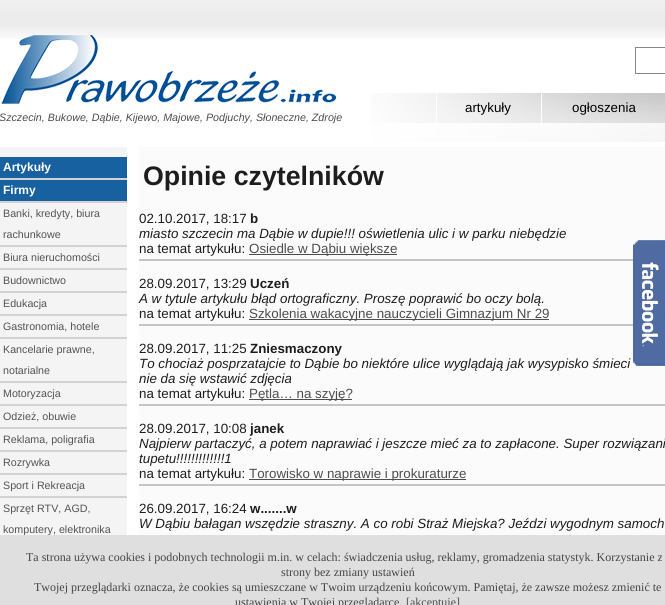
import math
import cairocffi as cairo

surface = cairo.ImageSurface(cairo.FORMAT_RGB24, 665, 605)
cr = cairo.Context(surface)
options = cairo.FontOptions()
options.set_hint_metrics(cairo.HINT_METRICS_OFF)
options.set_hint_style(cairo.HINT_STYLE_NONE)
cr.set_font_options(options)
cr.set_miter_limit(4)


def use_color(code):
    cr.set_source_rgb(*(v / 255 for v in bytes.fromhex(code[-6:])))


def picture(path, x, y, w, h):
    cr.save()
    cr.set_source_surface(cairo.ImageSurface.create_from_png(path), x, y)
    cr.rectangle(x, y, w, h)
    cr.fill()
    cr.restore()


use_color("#ffffff")
cr.paint()
picture("img1.png", 0, 0, 665, 39)
picture("img2.png", 1, 35, 335, 69)
picture("img3.png", 371, 93, 294, 49)
cr.rectangle(635.5, 47.5, 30, 26)
use_color("#878787")
cr.set_line_width(1)
cr.stroke()
cr.select_font_face("Liberation Sans")
cr.set_font_size(13.35)
use_color("#000000")
cr.move_to(465, 112)
cr.show_text("artykuły")
cr.move_to(572, 112)
cr.show_text("ogłoszenia")
cr.select_font_face("Liberation Sans", cairo.FONT_SLANT_ITALIC)
cr.set_font_size(10.7)
use_color("#4d4d4d")
cr.move_to(-1, 121)
cr.show_text("Szczecin, Bukowe, Dąbie, Kijewo, Majowe, Podjuchy, Słoneczne, Zdroje")
use_color("#f4f4f4")
cr.rectangle(0, 147, 127, 388)
cr.fill()
use_color("#1861a0")
cr.rectangle(0, 157, 127, 21)
cr.fill()
use_color("#d2d2d2")
cr.rectangle(0, 178, 127, 2)
cr.fill()
cr.select_font_face("Liberation Sans", cairo.FONT_SLANT_NORMAL, cairo.FONT_WEIGHT_BOLD)
cr.set_font_size(12)
use_color("#ffffff")
cr.move_to(3, 171)
cr.show_text("Artykuły")
use_color("#1861a0")
cr.rectangle(0, 180, 127, 21)
cr.fill()
use_color("#d2d2d2")
cr.rectangle(0, 201, 127, 2)
cr.fill()
use_color("#ffffff")
cr.move_to(3, 194)
cr.show_text("Firmy")
use_color("#d2d2d2")
cr.rectangle(0, 245, 127, 2)
cr.fill()
cr.select_font_face("Liberation Sans")
cr.set_font_size(10.7)
use_color("#535353")
cr.move_to(3, 217)
cr.show_text("Banki, kredyty, biura")
cr.move_to(3, 238)
cr.show_text("rachunkowe")
use_color("#d2d2d2")
cr.rectangle(0, 268, 127, 2)
cr.fill()
use_color("#535353")
cr.move_to(3, 261)
cr.show_text("Biura nieruchomości")
use_color("#d2d2d2")
cr.rectangle(0, 291, 127, 2)
cr.fill()
use_color("#535353")
cr.move_to(3, 284)
cr.show_text("Budownictwo")
use_color("#d2d2d2")
cr.rectangle(0, 314, 127, 2)
cr.fill()
use_color("#535353")
cr.move_to(3, 307)
cr.show_text("Edukacja")
use_color("#d2d2d2")
cr.rectangle(0, 337, 127, 2)
cr.fill()
use_color("#535353")
cr.move_to(3, 330)
cr.show_text("Gastronomia, hotele")
use_color("#d2d2d2")
cr.rectangle(0, 381, 127, 2)
cr.fill()
use_color("#535353")
cr.move_to(3, 353)
cr.show_text("Kancelarie prawne,")
cr.move_to(3, 374)
cr.show_text("notarialne")
use_color("#d2d2d2")
cr.rectangle(0, 404, 127, 2)
cr.fill()
use_color("#535353")
cr.move_to(3, 397)
cr.show_text("Motoryzacja")
use_color("#d2d2d2")
cr.rectangle(0, 427, 127, 2)
cr.fill()
use_color("#535353")
cr.move_to(3, 420)
cr.show_text("Odzież, obuwie")
use_color("#d2d2d2")
cr.rectangle(0, 450, 127, 2)
cr.fill()
use_color("#535353")
cr.move_to(3, 443)
cr.show_text("Reklama, poligrafia")
use_color("#d2d2d2")
cr.rectangle(0, 473, 127, 2)
cr.fill()
use_color("#535353")
cr.move_to(3, 466)
cr.show_text("Rozrywka")
use_color("#d2d2d2")
cr.rectangle(0, 496, 127, 2)
cr.fill()
use_color("#535353")
cr.move_to(3, 489)
cr.show_text("Sport i Rekreacja")
cr.move_to(3, 512)
cr.show_text("Sprzęt RTV, AGD,")
cr.move_to(3, 533)
cr.show_text("komputery, elektronika")
use_color("#fbfbfb")
cr.rectangle(139, 147, 526, 388)
cr.fill()
cr.select_font_face("Liberation Sans", cairo.FONT_SLANT_NORMAL, cairo.FONT_WEIGHT_BOLD)
cr.set_font_size(26.75)
use_color("#1d1d1d")
cr.move_to(143, 185)
cr.show_text("Opinie czytelników")
use_color("#c5c5c5")
cr.rectangle(139, 259, 494, 2)
cr.fill()
cr.select_font_face("Liberation Sans")
cr.set_font_size(13.35)
use_color("#1d1d1d")
cr.move_to(139, 223)
cr.show_text("02.10.2017, 18:17")
cr.select_font_face("Liberation Sans", cairo.FONT_SLANT_NORMAL, cairo.FONT_WEIGHT_BOLD)
cr.move_to(250, 223)
cr.show_text("b")
cr.select_font_face("Liberation Sans", cairo.FONT_SLANT_ITALIC)
cr.move_to(139, 238)
cr.show_text("miasto szczecin ma Dąbie w dupie!!! oświetlenia ulic i w parku niebędzie")
cr.select_font_face("Liberation Sans")
cr.move_to(139, 253)
cr.show_text("na temat artykułu:")
use_color("#4d4d4d")
cr.rectangle(249, 254, 148, 1)
cr.fill()
cr.move_to(249, 253)
cr.show_text("Osiedle w Dąbiu większe")
use_color("#c5c5c5")
cr.rectangle(139, 324, 494, 2)
cr.fill()
use_color("#1d1d1d")
cr.move_to(139, 288)
cr.show_text("28.09.2017, 13:29")
cr.select_font_face("Liberation Sans", cairo.FONT_SLANT_NORMAL, cairo.FONT_WEIGHT_BOLD)
cr.move_to(250, 288)
cr.show_text("Uczeń")
cr.select_font_face("Liberation Sans", cairo.FONT_SLANT_ITALIC)
cr.move_to(139, 303)
cr.show_text("A w tytule artykułu błąd ortograficzny. Proszę poprawić bo oczy bolą.")
cr.select_font_face("Liberation Sans")
cr.move_to(139, 318)
cr.show_text("na temat artykułu:")
use_color("#4d4d4d")
cr.rectangle(249, 319, 300, 1)
cr.fill()
cr.move_to(249, 318)
cr.show_text("Szkolenia wakacyjne nauczycieli Gimnazjum Nr 29")
use_color("#c5c5c5")
cr.rectangle(139, 404, 526, 2)
cr.fill()
use_color("#1d1d1d")
cr.move_to(139, 353)
cr.show_text("28.09.2017, 11:25")
cr.select_font_face("Liberation Sans", cairo.FONT_SLANT_NORMAL, cairo.FONT_WEIGHT_BOLD)
cr.move_to(250, 353)
cr.show_text("Zniesmaczony")
cr.select_font_face("Liberation Sans", cairo.FONT_SLANT_ITALIC)
cr.move_to(139, 368)
cr.show_text("To chociaż posprzatajcie to Dąbie bo niektóre ulice wyglądają jak wysypisko śmieci")
cr.move_to(139, 383)
cr.show_text("nie da się wstawić zdjęcia")
cr.select_font_face("Liberation Sans")
cr.move_to(139, 398)
cr.show_text("na temat artykułu:")
use_color("#4d4d4d")
cr.rectangle(249, 399, 103, 1)
cr.fill()
cr.move_to(249, 398)
cr.show_text("Pętla… na szyję?")
use_color("#c5c5c5")
cr.rectangle(139, 484, 526, 2)
cr.fill()
use_color("#1d1d1d")
cr.move_to(139, 433)
cr.show_text("28.09.2017, 10:08")
cr.select_font_face("Liberation Sans", cairo.FONT_SLANT_NORMAL, cairo.FONT_WEIGHT_BOLD)
cr.move_to(250, 433)
cr.show_text("janek")
cr.select_font_face("Liberation Sans", cairo.FONT_SLANT_ITALIC)
cr.move_to(139, 448)
cr.show_text("Najpierw partaczyć, a potem naprawiać i jeszcze mieć za to zapłacone. Super rozwiązani")
cr.move_to(139, 463)
cr.show_text("tupetu!!!!!!!!!!!!!1")
cr.select_font_face("Liberation Sans")
cr.move_to(139, 478)
cr.show_text("na temat artykułu:")
use_color("#4d4d4d")
cr.rectangle(249, 479, 217, 1)
cr.fill()
cr.move_to(249, 478)
cr.show_text("Torowisko w naprawie i prokuraturze")
use_color("#1d1d1d")
cr.move_to(139, 513)
cr.show_text("26.09.2017, 16:24")
cr.select_font_face("Liberation Sans", cairo.FONT_SLANT_NORMAL, cairo.FONT_WEIGHT_BOLD)
cr.move_to(250, 513)
cr.show_text("w.......w")
cr.select_font_face("Liberation Sans", cairo.FONT_SLANT_ITALIC)
cr.move_to(139, 528)
cr.show_text("W Dąbiu bałagan wszędzie straszny. A co robi Straż Miejska? Jeździ wygodnym samoch")
picture("img4.png", 633, 240, 32, 126)
use_color("#dfdfdf")
cr.rectangle(0, 535, 665, 70)
cr.fill()
cr.select_font_face("Liberation Serif")
cr.set_font_size(12)
use_color("#444444")
cr.move_to(26, 561)
cr.show_text("Ta strona używa cookies i podobnych technologii m.in. w celach: świadczenia usług, reklamy, gromadzenia statystyk. Korzystanie z")
cr.move_to(281, 576)
cr.show_text("strony bez zmiany ustawień")
cr.move_to(34, 591)
cr.show_text("Twojej przeglądarki oznacza, że cookies są umieszczane w Twoim urządzeniu końcowym. Pamiętaj, że zawsze możesz zmienić te")
cr.move_to(235, 606)
cr.show_text("ustawienia w Twojej przeglądarce.")
use_color("#4d4d4d")
cr.move_to(406, 606)
cr.show_text("[akceptuję]")
surface.write_to_png("result.png")
